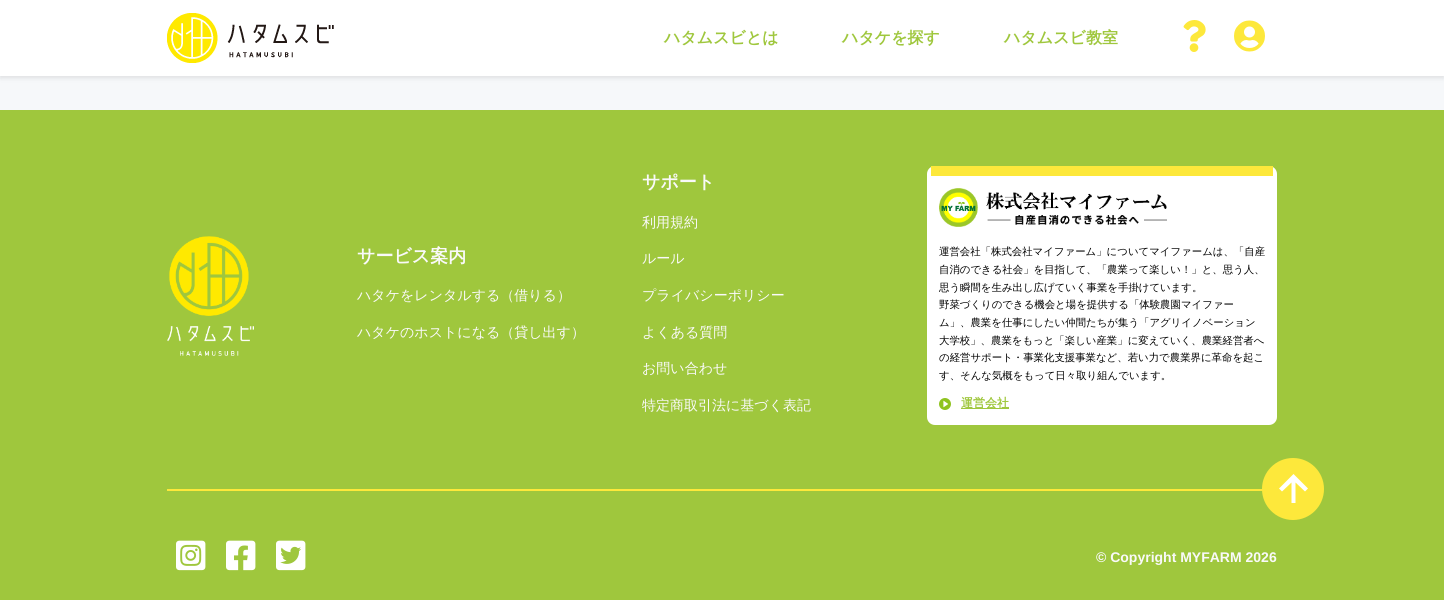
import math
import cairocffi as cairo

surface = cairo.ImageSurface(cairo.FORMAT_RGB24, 1444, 600)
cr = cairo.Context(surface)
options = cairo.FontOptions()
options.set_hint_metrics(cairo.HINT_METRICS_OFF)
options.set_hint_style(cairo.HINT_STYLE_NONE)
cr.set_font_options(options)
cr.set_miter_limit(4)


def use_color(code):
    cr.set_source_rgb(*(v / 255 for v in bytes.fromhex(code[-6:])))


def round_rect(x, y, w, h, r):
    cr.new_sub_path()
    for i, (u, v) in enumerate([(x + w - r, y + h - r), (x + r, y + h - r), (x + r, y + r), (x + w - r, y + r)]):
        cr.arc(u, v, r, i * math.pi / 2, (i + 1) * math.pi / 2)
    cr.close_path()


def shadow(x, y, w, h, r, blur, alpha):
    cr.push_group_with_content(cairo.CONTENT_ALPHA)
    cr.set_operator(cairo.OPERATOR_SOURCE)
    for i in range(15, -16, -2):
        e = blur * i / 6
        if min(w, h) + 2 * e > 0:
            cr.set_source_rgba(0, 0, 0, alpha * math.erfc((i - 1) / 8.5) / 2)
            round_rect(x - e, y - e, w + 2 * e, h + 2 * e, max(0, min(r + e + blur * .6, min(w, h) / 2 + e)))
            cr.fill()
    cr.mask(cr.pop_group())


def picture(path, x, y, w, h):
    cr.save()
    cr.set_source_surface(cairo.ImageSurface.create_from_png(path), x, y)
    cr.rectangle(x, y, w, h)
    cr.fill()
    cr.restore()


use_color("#f6f8fa")
cr.paint()
use_color("#000000")
shadow(0, 2, 1444, 76, 0, 2.5, 0.1)
use_color("#ffffff")
cr.rectangle(0, 0, 1444, 76)
cr.fill()
picture("img1.png", 167, 13, 167, 50)
cr.select_font_face("WenQuanYi Zen Hei", cairo.FONT_SLANT_NORMAL, cairo.FONT_WEIGHT_BOLD)
cr.set_font_size(16)
use_color("#9fc73d")
cr.move_to(664, 43)
cr.show_text("ハタムスビとは")
cr.move_to(842, 43)
cr.show_text("ハタケを探す")
cr.move_to(1004, 43)
cr.show_text("ハタムスビ教室")
picture("img2.png", 1183, 20, 23, 32)
picture("img3.png", 1234, 20, 31, 32)
cr.rectangle(0, 110, 1444, 490)
cr.fill()
picture("img4.png", 167, 236, 87, 120)
cr.set_font_size(18)
use_color("#f9f9f9")
cr.move_to(357, 262)
cr.show_text("サービス案内")
cr.select_font_face("WenQuanYi Zen Hei Medium")
cr.set_font_size(14)
cr.move_to(357, 300)
cr.show_text("ハタケをレンタルする（借りる）")
cr.move_to(357, 337)
cr.show_text("ハタケのホストになる（貸し出す）")
cr.select_font_face("WenQuanYi Zen Hei", cairo.FONT_SLANT_NORMAL, cairo.FONT_WEIGHT_BOLD)
cr.set_font_size(18)
cr.move_to(642, 188)
cr.show_text("サポート")
cr.select_font_face("WenQuanYi Zen Hei Medium")
cr.set_font_size(14)
cr.move_to(642, 227)
cr.show_text("利用規約")
cr.move_to(642, 263)
cr.show_text("ルール")
cr.move_to(642, 300)
cr.show_text("プライバシーポリシー")
cr.move_to(642, 337)
cr.show_text("よくある質問")
cr.move_to(642, 373)
cr.show_text("お問い合わせ")
cr.move_to(642, 410)
cr.show_text("特定商取引法に基づく表記")
use_color("#ffffff")
round_rect(927, 166, 350, 259, 8)
cr.fill()
use_color("#fde83b")
cr.rectangle(931, 166, 342, 10)
cr.fill()
picture("img5.png", 939, 188, 228, 39)
cr.set_font_size(10.4)
use_color("#000000")
cr.move_to(939, 255)
cr.show_text("運営会社「株式会社マイファーム」についてマイファームは、「自産")
cr.move_to(939, 273)
cr.show_text("自消のできる社会」を目指して、「農業って楽しい！」と、思う人、")
cr.move_to(939, 291)
cr.show_text("思う瞬間を生み出し広げていく事業を手掛けています。")
cr.move_to(939, 308)
cr.show_text("野菜づくりのできる機会と場を提供する「体験農園マイファー")
cr.move_to(939, 326)
cr.show_text("ム」、農業を仕事にしたい仲間たちが集う「アグリイノベーション")
cr.move_to(939, 344)
cr.show_text("大学校」、農業をもっと「楽しい産業」に変えていく、農業経営者へ")
cr.move_to(939, 361)
cr.show_text("の経営サポート・事業化支援事業など、若い力で農業界に革命を起こ")
cr.move_to(939, 379)
cr.show_text("す、そんな気概をもって日々取り組んでいます。")
picture("img6.png", 939, 398, 12, 12)
use_color("#9fc73d")
cr.rectangle(961, 408, 48, 1)
cr.fill()
cr.select_font_face("WenQuanYi Zen Hei", cairo.FONT_SLANT_NORMAL, cairo.FONT_WEIGHT_BOLD)
cr.set_font_size(12)
cr.move_to(961, 407)
cr.show_text("運営会社")
use_color("#fde83b")
cr.rectangle(167, 489, 1096, 2)
cr.fill()
picture("img7.png", 176, 540, 30, 31)
picture("img8.png", 226, 540, 30, 31)
picture("img9.png", 276, 540, 30, 31)
cr.select_font_face("Liberation Sans", cairo.FONT_SLANT_NORMAL, cairo.FONT_WEIGHT_BOLD)
cr.set_font_size(14)
use_color("#f9f9f9")
cr.move_to(1096, 562)
cr.show_text("© Copyright MYFARM 2026")
use_color("#fde83b")
cr.new_path()
cr.arc(1293, 489, 31, 0, 2 * math.pi)
cr.fill()
use_color("#ffffff")
cr.new_path()
cr.move_to(1291.5, 482.5)
cr.line_to(1291.5, 503)
cr.line_to(1295.5, 503)
cr.line_to(1295.5, 482.5)
cr.line_to(1305, 491.5)
cr.line_to(1308, 488.5)
cr.line_to(1293.5, 474)
cr.line_to(1279, 488.5)
cr.line_to(1282, 491.5)
cr.close_path()
cr.fill()
surface.write_to_png("result.png")
